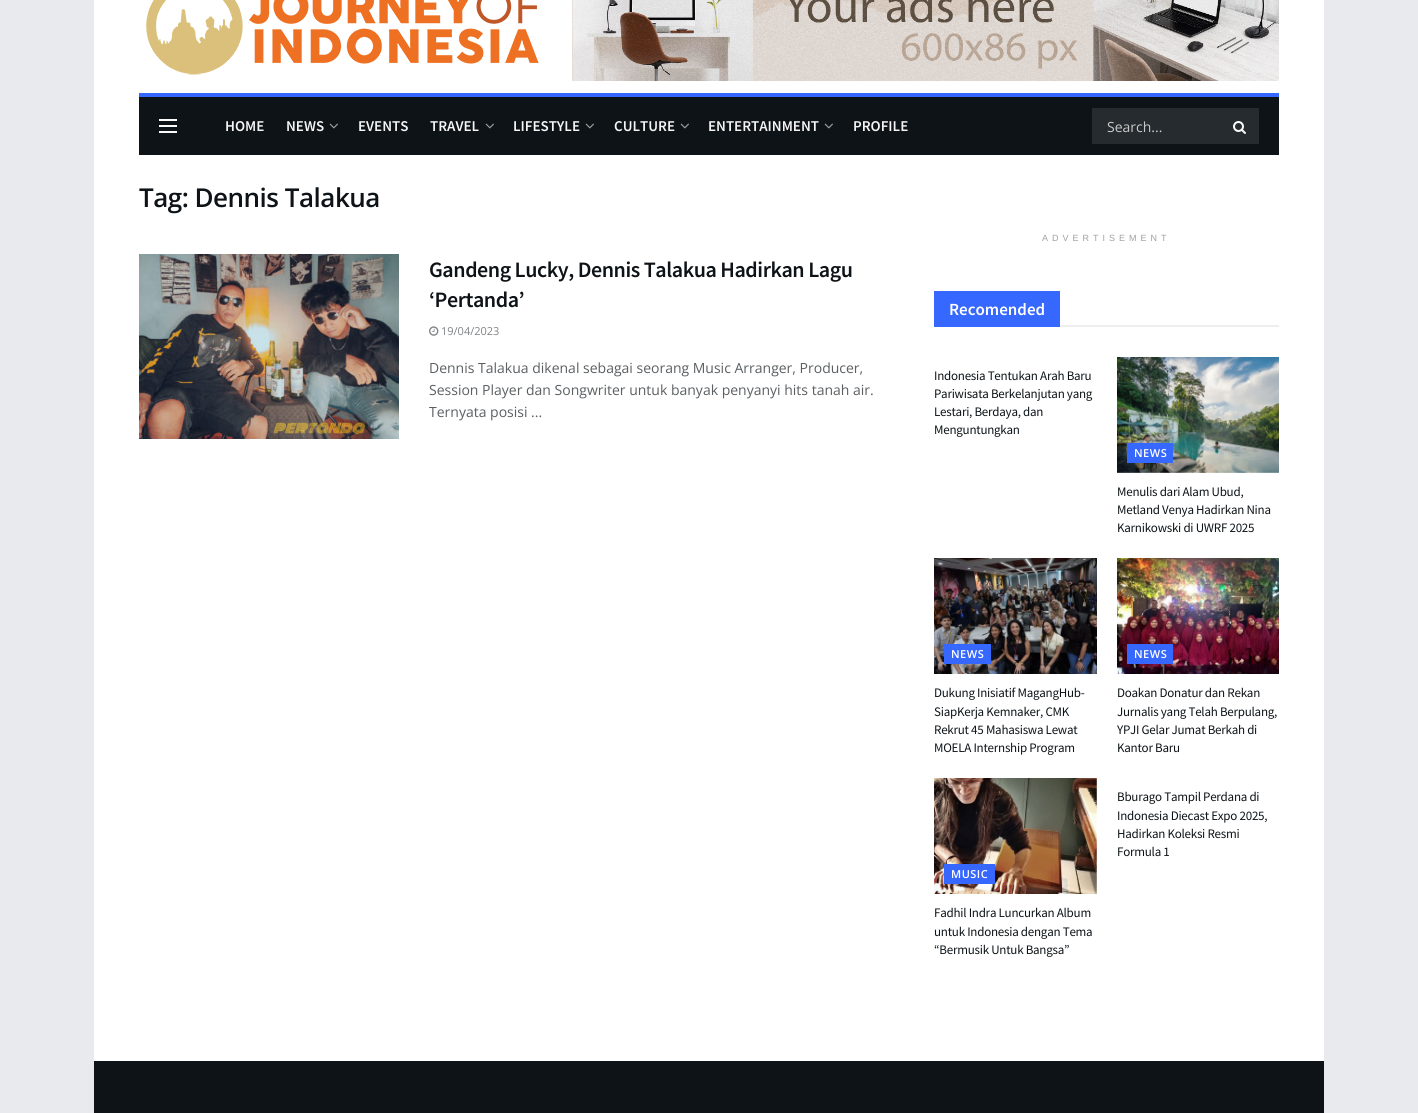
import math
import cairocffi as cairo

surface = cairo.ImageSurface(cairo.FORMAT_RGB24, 1418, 1113)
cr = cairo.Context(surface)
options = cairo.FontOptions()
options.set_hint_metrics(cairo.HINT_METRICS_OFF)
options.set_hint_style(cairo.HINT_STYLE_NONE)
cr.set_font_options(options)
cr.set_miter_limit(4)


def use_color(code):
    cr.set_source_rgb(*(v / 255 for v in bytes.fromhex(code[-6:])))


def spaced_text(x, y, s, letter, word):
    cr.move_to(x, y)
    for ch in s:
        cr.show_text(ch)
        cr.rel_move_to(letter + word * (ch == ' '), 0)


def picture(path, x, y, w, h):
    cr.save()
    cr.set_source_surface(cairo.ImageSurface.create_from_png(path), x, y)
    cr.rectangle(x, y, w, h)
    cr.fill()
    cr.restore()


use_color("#e9eaed")
cr.paint()
use_color("#ffffff")
cr.rectangle(94, 0, 1230, 1061)
cr.fill()
picture("img1.png", 146, 0, 393, 75)
picture("img2.png", 572, 0, 707, 81)
use_color("#0d1317")
cr.rectangle(139, 97, 1140, 58)
cr.fill()
use_color("#3667ff")
cr.rectangle(139, 93, 1140, 4)
cr.fill()
use_color("#fafafa")
cr.rectangle(159, 119, 18, 2)
cr.fill()
cr.rectangle(159, 125, 18, 2)
cr.fill()
cr.rectangle(159, 131, 18, 2)
cr.fill()
cr.select_font_face("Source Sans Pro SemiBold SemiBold")
cr.set_font_size(15)
use_color("#f5f5f5")
cr.move_to(225, 131)
cr.show_text("HOME")
cr.move_to(286, 131)
cr.show_text("NEWS")
picture("img3.png", 329, 123, 9, 6)
cr.move_to(358, 131)
cr.show_text("EVENTS")
cr.move_to(430, 131)
cr.show_text("TRAVEL")
picture("img3.png", 485, 123, 9, 6)
cr.move_to(513, 131)
cr.show_text("LIFESTYLE")
picture("img3.png", 585, 123, 9, 6)
cr.move_to(614, 131)
cr.show_text("CULTURE")
picture("img3.png", 680, 123, 9, 6)
cr.move_to(708, 131)
cr.show_text("ENTERTAINMENT")
picture("img3.png", 824, 123, 9, 6)
cr.move_to(853, 131)
cr.show_text("PROFILE")
use_color("#252b2e")
cr.rectangle(1092, 108, 167, 36)
cr.fill()
cr.select_font_face("Open Sans")
cr.set_font_size(14)
use_color("#c9cacb")
cr.move_to(1107, 132)
cr.show_text("Search...")
picture("img4.png", 1233, 121, 13, 13)
cr.select_font_face("Open Sans SemiBold")
cr.set_font_size(26)
use_color("#0d1317")
spaced_text(139, 207, "Tag: Dennis Talakua", -0.5, 0)
picture("img5.png", 139, 254, 260, 185)
cr.select_font_face("Source Sans Pro SemiBold SemiBold")
cr.set_font_size(22)
spaced_text(429, 277, "Gandeng Lucky, Dennis Talakua Hadirkan Lagu", -0.45, 0)
spaced_text(429, 307, "‘Pertanda’", -0.45, 0)
picture("img6.png", 429, 326, 10, 10)
cr.select_font_face("Open Sans")
cr.set_font_size(11)
use_color("#808386")
cr.move_to(441, 335)
cr.show_text("19/04/2023")
cr.set_font_size(14)
use_color("#5b5f62")
cr.move_to(429, 373)
cr.show_text("Dennis Talakua dikenal sebagai seorang Music Arranger, Producer,")
cr.move_to(429, 395)
cr.show_text("Session Player dan Songwriter untuk banyak penyanyi hits tanah air.")
cr.move_to(429, 417)
cr.show_text("Ternyata posisi ...")
cr.select_font_face("Liberation Sans")
cr.set_font_size(9)
use_color("#a0a0a0")
spaced_text(1042, 241, "ADVERTISEMENT", 4, 0)
use_color("#eeeeee")
cr.rectangle(1060, 325, 219, 2)
cr.fill()
use_color("#3667ff")
cr.rectangle(934, 291, 126, 36)
cr.fill()
cr.select_font_face("Source Sans Pro SemiBold SemiBold")
cr.set_font_size(17)
use_color("#ffffff")
cr.move_to(949, 315)
cr.show_text("Recomended")
cr.select_font_face("Source Sans Pro")
cr.set_font_size(13)
use_color("#0d1317")
spaced_text(934, 380, "Indonesia Tentukan Arah Baru", -0.25, 0)
spaced_text(934, 398, "Pariwisata Berkelanjutan yang", -0.25, 0)
spaced_text(934, 416, "Lestari, Berdaya, dan", -0.25, 0)
spaced_text(934, 434, "Menguntungkan", -0.25, 0)
picture("img7.png", 1117, 357, 162, 116)
use_color("#3667ff")
cr.rectangle(1127, 443, 46, 20)
cr.fill()
cr.select_font_face("Open Sans SemiBold")
cr.set_font_size(11)
use_color("#ffffff")
spaced_text(1134, 457, "NEWS", 0.5, 0)
cr.select_font_face("Source Sans Pro")
cr.set_font_size(13)
use_color("#0d1317")
spaced_text(1117, 496, "Menulis dari Alam Ubud,", -0.25, 0)
spaced_text(1117, 514, "Metland Venya Hadirkan Nina", -0.25, 0)
spaced_text(1117, 532, "Karnikowski di UWRF 2025", -0.25, 0)
picture("img8.png", 934, 558, 163, 116)
use_color("#3667ff")
cr.rectangle(944, 644, 47, 20)
cr.fill()
cr.select_font_face("Open Sans SemiBold")
cr.set_font_size(11)
use_color("#ffffff")
spaced_text(951, 658, "NEWS", 0.5, 0)
cr.select_font_face("Source Sans Pro")
cr.set_font_size(13)
use_color("#0d1317")
spaced_text(934, 697, "Dukung Inisiatif MagangHub-", -0.25, 0)
spaced_text(934, 716, "SiapKerja Kemnaker, CMK", -0.25, 0)
spaced_text(934, 734, "Rekrut 45 Mahasiswa Lewat", -0.25, 0)
spaced_text(934, 752, "MOELA Internship Program", -0.25, 0)
picture("img9.png", 1117, 558, 162, 116)
use_color("#3667ff")
cr.rectangle(1127, 644, 46, 20)
cr.fill()
cr.select_font_face("Open Sans SemiBold")
cr.set_font_size(11)
use_color("#ffffff")
spaced_text(1134, 658, "NEWS", 0.5, 0)
cr.select_font_face("Source Sans Pro")
cr.set_font_size(13)
use_color("#0d1317")
spaced_text(1117, 697, "Doakan Donatur dan Rekan", -0.25, 0)
spaced_text(1117, 716, "Jurnalis yang Telah Berpulang,", -0.25, 0)
spaced_text(1117, 734, "YPJI Gelar Jumat Berkah di", -0.25, 0)
spaced_text(1117, 752, "Kantor Baru", -0.25, 0)
spaced_text(1117, 801, "Bburago Tampil Perdana di", -0.25, 0)
spaced_text(1117, 820, "Indonesia Diecast Expo 2025,", -0.25, 0)
spaced_text(1117, 838, "Hadirkan Koleksi Resmi", -0.25, 0)
spaced_text(1117, 856, "Formula 1", -0.25, 0)
picture("img10.png", 934, 778, 163, 116)
use_color("#3667ff")
cr.rectangle(944, 864, 51, 20)
cr.fill()
cr.select_font_face("Open Sans SemiBold")
cr.set_font_size(11)
use_color("#ffffff")
spaced_text(951, 878, "MUSIC", 0.5, 0)
cr.select_font_face("Source Sans Pro")
cr.set_font_size(13)
use_color("#0d1317")
spaced_text(934, 917, "Fadhil Indra Luncurkan Album", -0.25, 0)
spaced_text(934, 936, "untuk Indonesia dengan Tema", -0.25, 0)
spaced_text(934, 954, "“Bermusik Untuk Bangsa”", -0.25, 0)
cr.rectangle(94, 1061, 1230, 52)
cr.fill()
surface.write_to_png("result.png")
